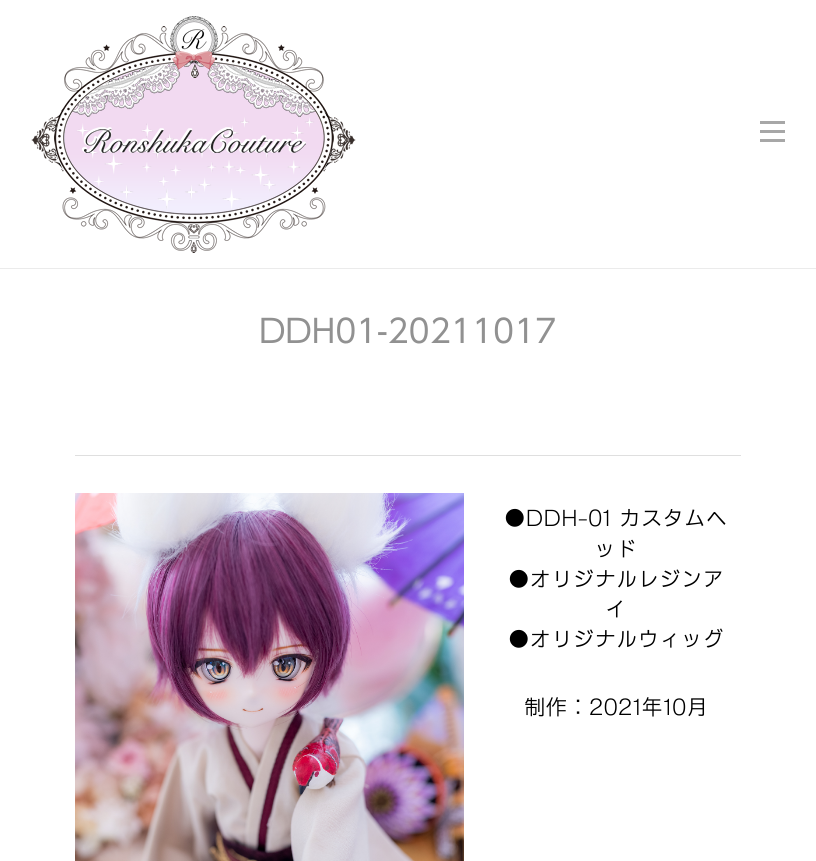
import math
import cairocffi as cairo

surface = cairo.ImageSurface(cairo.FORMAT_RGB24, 816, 861)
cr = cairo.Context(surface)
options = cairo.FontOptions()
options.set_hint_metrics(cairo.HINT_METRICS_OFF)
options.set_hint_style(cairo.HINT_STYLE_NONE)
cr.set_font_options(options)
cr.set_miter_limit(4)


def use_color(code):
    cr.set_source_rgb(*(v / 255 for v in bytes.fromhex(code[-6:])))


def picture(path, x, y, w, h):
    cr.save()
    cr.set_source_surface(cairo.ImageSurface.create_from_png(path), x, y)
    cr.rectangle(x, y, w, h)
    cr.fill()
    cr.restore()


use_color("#ffffff")
cr.paint()
picture("img1.png", 31, 16, 325, 237)
use_color("#a7a7a7")
cr.rectangle(760, 121, 25, 3)
cr.fill()
cr.rectangle(760, 130, 25, 3)
cr.fill()
cr.rectangle(760, 139, 25, 3)
cr.fill()
use_color("#ebebeb")
cr.rectangle(0, 268, 816, 1)
cr.fill()
cr.select_font_face("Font")
cr.set_font_size(32)
use_color("#919191")
cr.move_to(259, 343)
cr.show_text("DDH01-20211017")
use_color("#dfdfdf")
cr.rectangle(75, 455, 666, 1)
cr.fill()
picture("img2.png", 75, 493, 389, 368)
cr.select_font_face("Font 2")
cr.set_font_size(21.6)
use_color("#000000")
cr.move_to(504, 526)
cr.show_text("●DDH-01 カスタムヘ")
cr.move_to(594, 557)
cr.show_text("ッド")
cr.move_to(508, 587)
cr.show_text("●オリジナルレジンア")
cr.move_to(605, 617)
cr.show_text("イ")
cr.move_to(508, 647)
cr.show_text("●オリジナルウィッグ")
cr.move_to(524, 715)
cr.show_text("制作：2021年10月")
surface.write_to_png("result.png")
